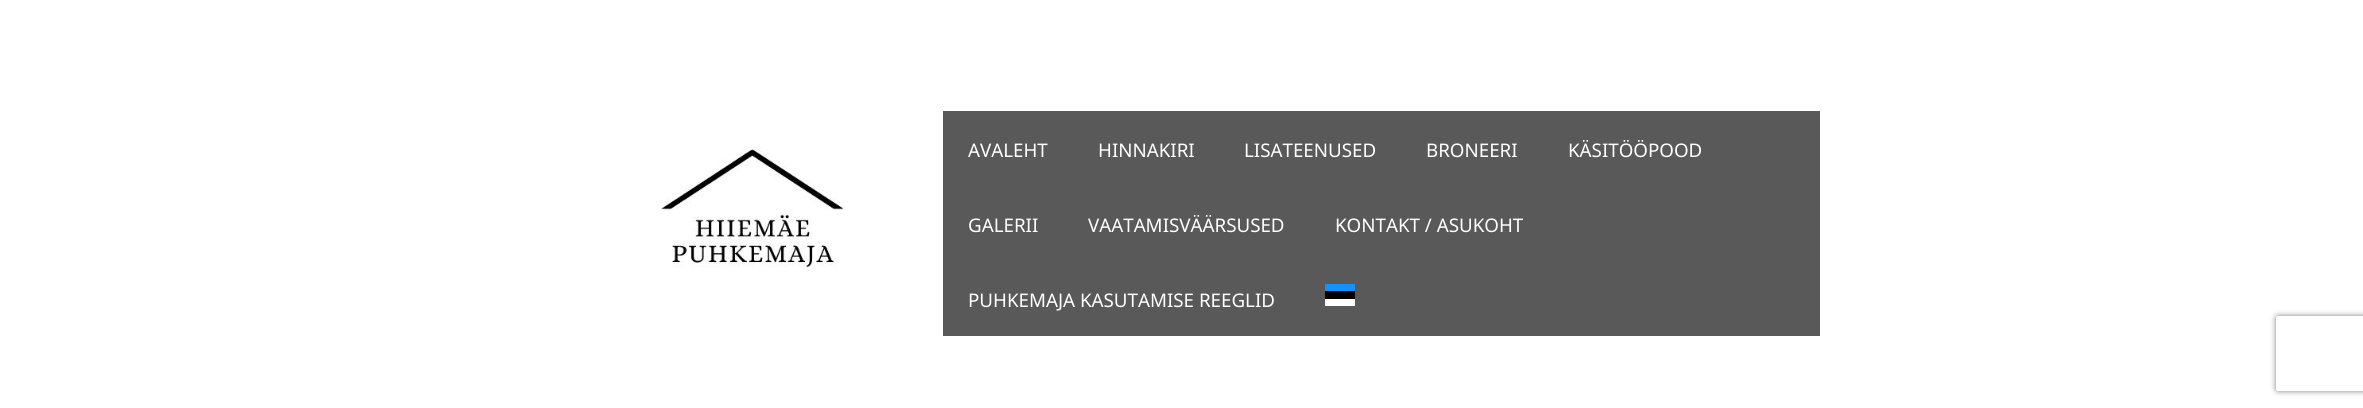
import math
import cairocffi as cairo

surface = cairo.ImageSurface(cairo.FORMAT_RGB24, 2363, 408)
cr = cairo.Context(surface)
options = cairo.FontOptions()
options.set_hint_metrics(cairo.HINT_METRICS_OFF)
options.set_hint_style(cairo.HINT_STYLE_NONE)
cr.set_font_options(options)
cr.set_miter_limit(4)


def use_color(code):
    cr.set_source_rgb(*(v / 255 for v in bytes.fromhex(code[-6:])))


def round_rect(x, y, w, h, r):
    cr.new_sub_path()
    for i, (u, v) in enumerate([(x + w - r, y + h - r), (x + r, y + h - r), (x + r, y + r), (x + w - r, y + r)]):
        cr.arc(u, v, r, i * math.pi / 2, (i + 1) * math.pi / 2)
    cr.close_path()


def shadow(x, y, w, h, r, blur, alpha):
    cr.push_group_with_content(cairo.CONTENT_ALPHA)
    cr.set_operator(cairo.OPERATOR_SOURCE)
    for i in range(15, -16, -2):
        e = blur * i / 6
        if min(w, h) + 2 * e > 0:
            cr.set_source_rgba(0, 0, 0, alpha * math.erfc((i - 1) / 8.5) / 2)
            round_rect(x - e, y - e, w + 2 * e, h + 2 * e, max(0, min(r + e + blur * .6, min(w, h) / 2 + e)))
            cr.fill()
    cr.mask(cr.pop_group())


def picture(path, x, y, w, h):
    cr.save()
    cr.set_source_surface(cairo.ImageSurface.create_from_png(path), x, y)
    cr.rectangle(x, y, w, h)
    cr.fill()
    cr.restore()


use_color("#ffffff")
cr.paint()
picture("img1.png", 660, 146, 184, 122)
use_color("#595959")
cr.rectangle(943, 111, 877, 225)
cr.fill()
cr.select_font_face("Noto Sans")
cr.set_font_size(18.75)
use_color("#ffffff")
cr.move_to(968, 157)
cr.show_text("AVALEHT")
cr.move_to(1098, 157)
cr.show_text("HINNAKIRI")
cr.move_to(1244, 157)
cr.show_text("LISATEENUSED")
cr.move_to(1426, 157)
cr.show_text("BRONEERI")
cr.move_to(1568, 157)
cr.show_text("KÄSITÖÖPOOD")
cr.move_to(968, 232)
cr.show_text("GALERII")
cr.move_to(1088, 232)
cr.show_text("VAATAMISVÄÄRSUSED")
cr.move_to(1335, 232)
cr.show_text("KONTAKT / ASUKOHT")
cr.move_to(968, 307)
cr.show_text("PUHKEMAJA KASUTAMISE REEGLID")
use_color("#1291ff")
cr.rectangle(1325, 284, 30, 7)
cr.fill()
use_color("#000000")
cr.rectangle(1325, 291, 30, 8)
cr.fill()
use_color("#ffffff")
cr.rectangle(1325, 299, 30, 7)
cr.fill()
cr.save()
cr.set_fill_rule(cairo.FILL_RULE_EVEN_ODD)
cr.new_path()
cr.move_to(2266, 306)
cr.line_to(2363, 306)
cr.line_to(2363, 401)
cr.line_to(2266, 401)
cr.close_path()
cr.move_to(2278.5, 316)
cr.line_to(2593.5, 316)
cr.curve_to(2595, 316, 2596, 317, 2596, 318.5)
cr.line_to(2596, 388.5)
cr.curve_to(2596, 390, 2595, 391, 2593.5, 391)
cr.line_to(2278.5, 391)
cr.curve_to(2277, 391, 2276, 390, 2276, 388.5)
cr.line_to(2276, 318.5)
cr.curve_to(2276, 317, 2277, 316, 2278.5, 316)
cr.close_path()
cr.clip()
use_color("#808080")
shadow(2276, 316, 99, 75, 2.5, 3, 1)
cr.restore()
surface.write_to_png("result.png")
